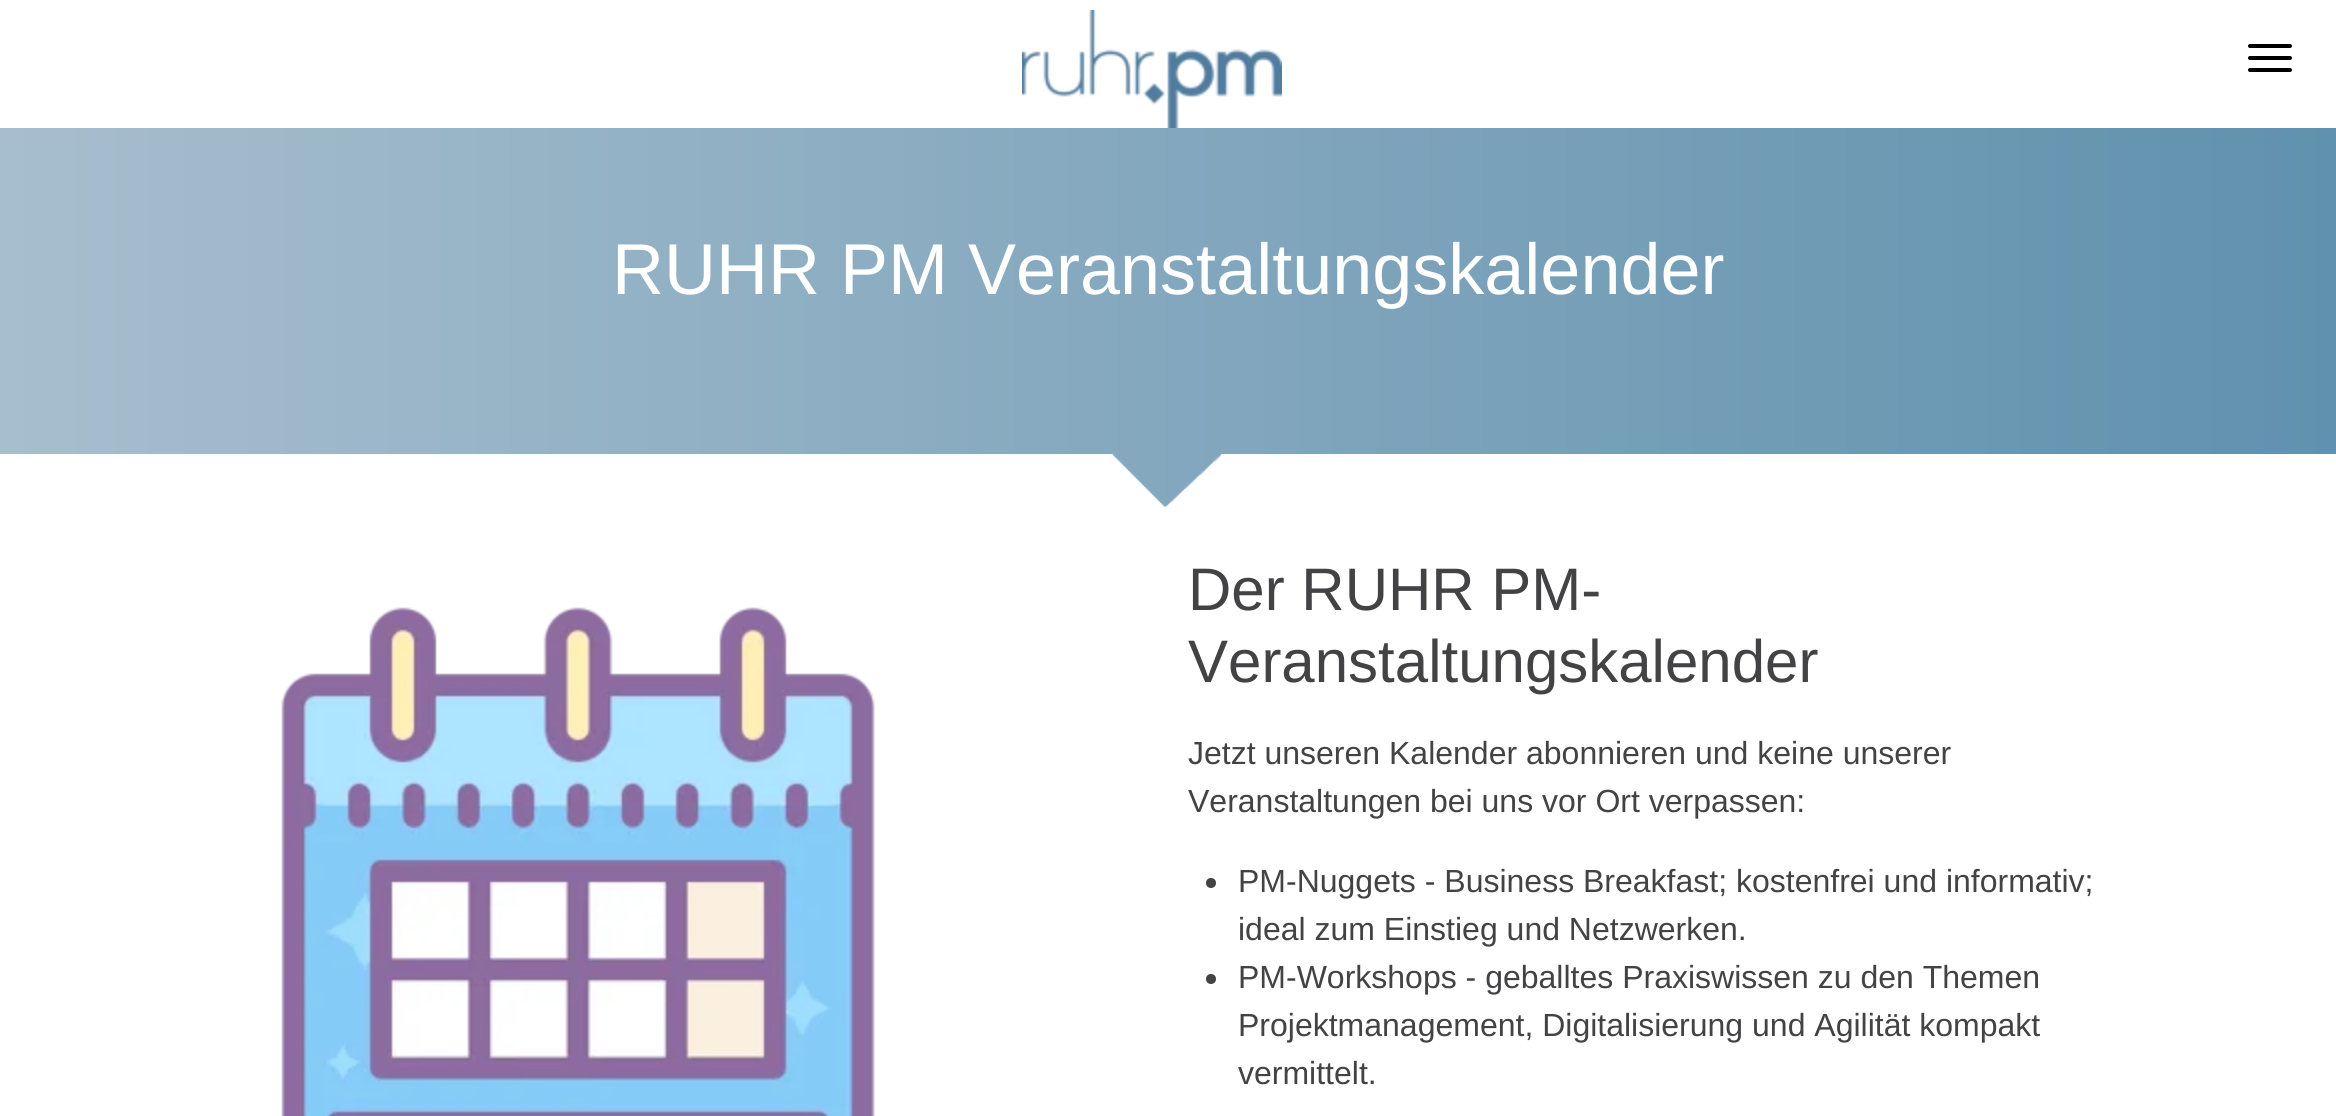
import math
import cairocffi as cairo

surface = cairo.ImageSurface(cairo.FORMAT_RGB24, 2336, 1116)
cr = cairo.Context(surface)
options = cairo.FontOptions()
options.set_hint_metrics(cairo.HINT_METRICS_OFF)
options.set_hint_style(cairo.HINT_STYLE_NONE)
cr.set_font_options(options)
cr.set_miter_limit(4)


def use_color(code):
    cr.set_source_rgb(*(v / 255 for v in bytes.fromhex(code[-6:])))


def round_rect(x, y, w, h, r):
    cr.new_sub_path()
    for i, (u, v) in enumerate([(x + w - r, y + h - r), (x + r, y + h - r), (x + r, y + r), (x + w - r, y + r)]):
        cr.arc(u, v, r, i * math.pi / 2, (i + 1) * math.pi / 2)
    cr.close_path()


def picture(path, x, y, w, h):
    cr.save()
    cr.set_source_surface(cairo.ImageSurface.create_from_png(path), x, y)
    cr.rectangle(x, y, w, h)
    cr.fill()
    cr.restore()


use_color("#ffffff")
cr.paint()
picture("img1.png", 1022, 10, 260, 118)
use_color("#000000")
round_rect(2248, 44, 44, 4, 2)
cr.fill()
round_rect(2248, 56, 44, 4, 2)
cr.fill()
round_rect(2248, 68, 44, 4, 2)
cr.fill()
gradient = cairo.LinearGradient(2336, 321, 0, 321)
gradient.add_color_stop_rgba(0, 0.376, 0.569, 0.682, 1)
gradient.add_color_stop_rgba(1, 0.655, 0.745, 0.808, 1)
cr.set_source(gradient)
cr.rectangle(0, 128, 2336, 379)
cr.fill()
cr.select_font_face("Liberation Sans")
cr.set_font_size(72)
use_color("#ffffff")
cr.move_to(612, 294)
cr.show_text("RUHR PM Veranstaltungskalender")
picture("img2.png", 0, 454, 2336, 60)
picture("img3.png", 281, 607, 594, 509)
cr.set_font_size(60)
use_color("#434345")
cr.move_to(1188, 610)
cr.show_text("Der RUHR PM-")
cr.move_to(1188, 682)
cr.show_text("Veranstaltungskalender")
cr.set_font_size(32)
cr.move_to(1188, 764)
cr.show_text("Jetzt unseren Kalender abonnieren und keine unserer")
cr.move_to(1188, 812)
cr.show_text("Veranstaltungen bei uns vor Ort verpassen:")
cr.new_path()
cr.arc(1211, 883, 5, 0, 2 * math.pi)
cr.fill()
cr.move_to(1238, 892)
cr.show_text("PM-Nuggets - Business Breakfast; kostenfrei und informativ;")
cr.move_to(1238, 940)
cr.show_text("ideal zum Einstieg und Netzwerken.")
cr.new_path()
cr.arc(1211, 979, 5, 0, 2 * math.pi)
cr.fill()
cr.move_to(1238, 988)
cr.show_text("PM-Workshops - geballtes Praxiswissen zu den Themen")
cr.move_to(1238, 1036)
cr.show_text("Projektmanagement, Digitalisierung und Agilität kompakt")
cr.move_to(1238, 1084)
cr.show_text("vermittelt.")
surface.write_to_png("result.png")
